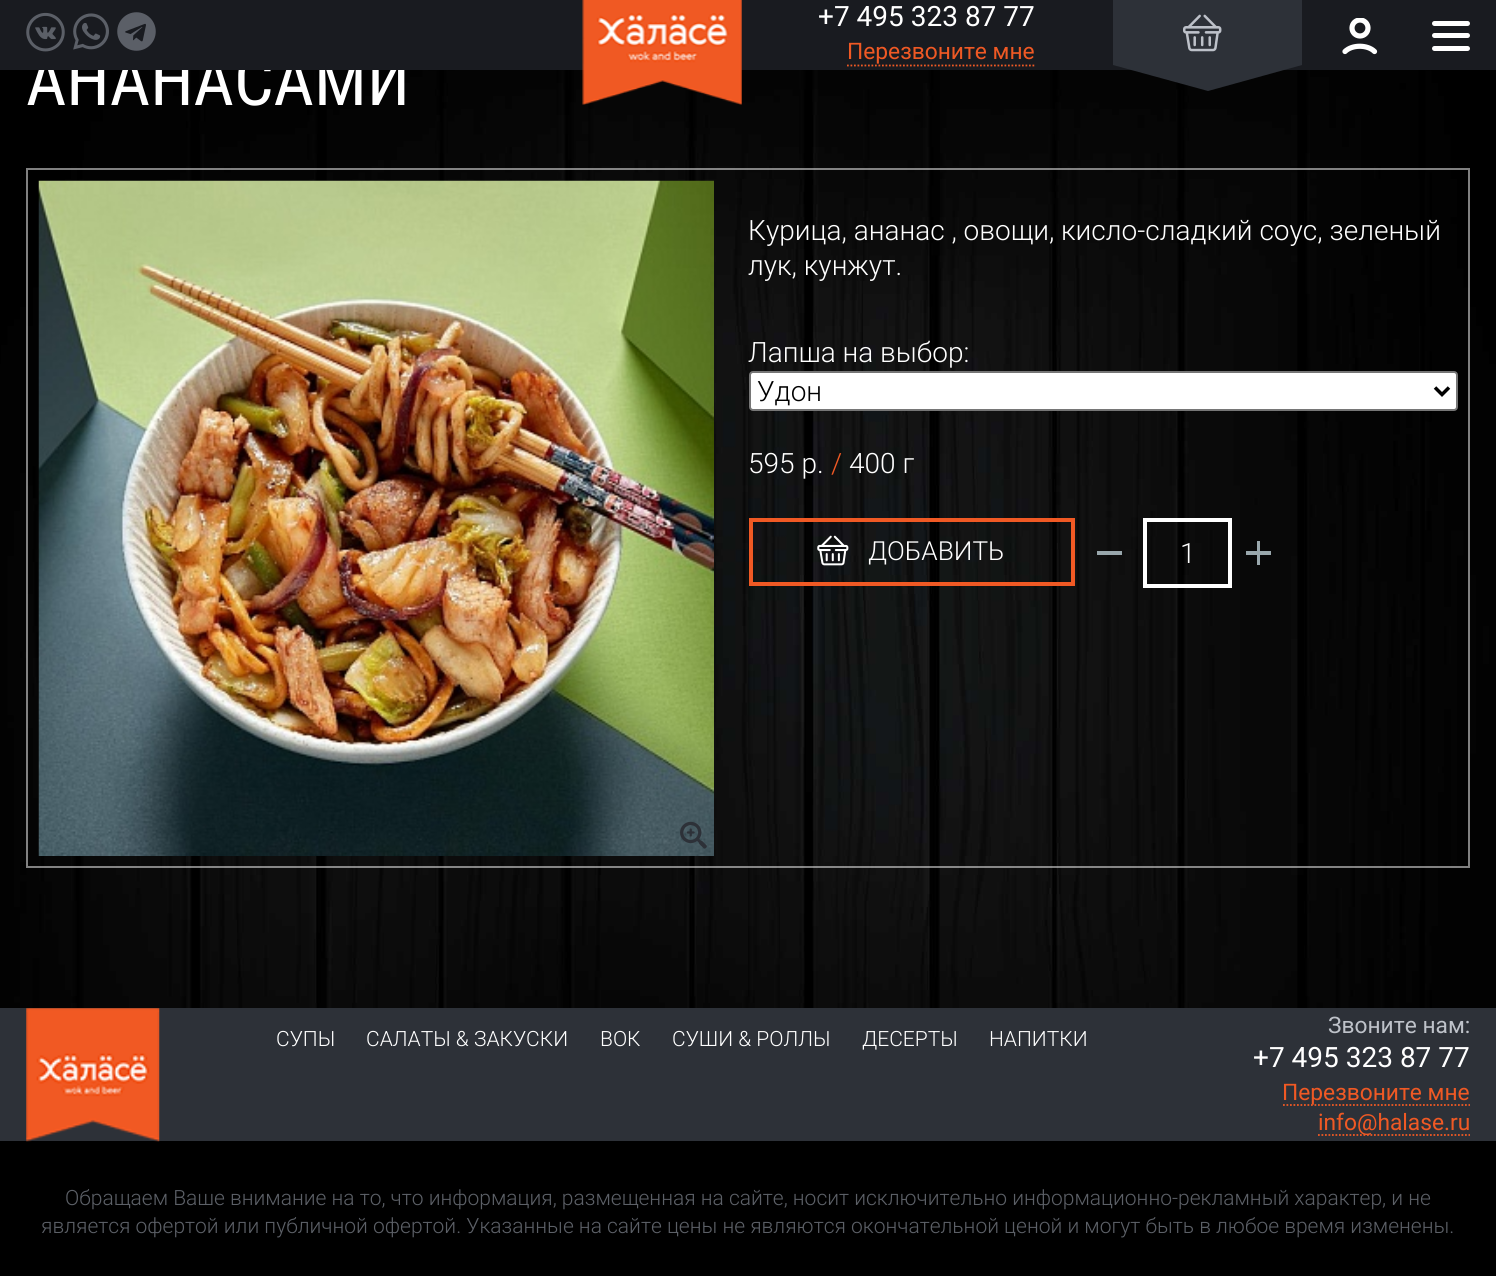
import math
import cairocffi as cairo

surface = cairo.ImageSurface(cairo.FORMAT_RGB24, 1496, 1276)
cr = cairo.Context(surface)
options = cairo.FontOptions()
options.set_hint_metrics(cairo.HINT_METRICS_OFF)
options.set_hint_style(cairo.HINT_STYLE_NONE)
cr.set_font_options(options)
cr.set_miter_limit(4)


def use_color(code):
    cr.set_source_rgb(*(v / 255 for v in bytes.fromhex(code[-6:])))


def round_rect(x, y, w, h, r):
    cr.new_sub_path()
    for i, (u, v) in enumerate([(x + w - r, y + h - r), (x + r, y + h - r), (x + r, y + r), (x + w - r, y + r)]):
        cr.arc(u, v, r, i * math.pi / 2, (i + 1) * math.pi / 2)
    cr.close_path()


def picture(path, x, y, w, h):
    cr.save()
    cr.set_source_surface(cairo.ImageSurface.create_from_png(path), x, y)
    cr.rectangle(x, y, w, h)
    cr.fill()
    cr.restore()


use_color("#ffffff")
cr.paint()
picture("img1.png", 0, 70, 1496, 938)
cr.select_font_face("Roboto Condensed")
cr.set_font_size(70)
use_color("#ffffff")
cr.move_to(26, 105)
cr.show_text("АНАНАСАМИ")
use_color("#191b20")
cr.rectangle(0, 0, 1496, 70)
cr.fill()
picture("img2.png", 26, 12, 39, 40)
picture("img3.png", 73, 13, 36, 37)
picture("img4.png", 117, 12, 39, 39)
picture("img5.png", 582, 0, 160, 105)
cr.select_font_face("Roboto")
cr.set_font_size(28)
use_color("#ffffff")
cr.move_to(818, 26)
cr.show_text("+7 495 323 87 77")
cr.set_font_size(22.75)
use_color("#f05924")
cr.move_to(847, 59)
cr.show_text("Перезвоните мне")
cr.new_path()
cr.move_to(847, 65.5)
cr.line_to(1036, 65.5)
cr.set_line_width(1.8)
cr.set_dash([1.75, 1.75])
cr.stroke()
use_color("#2d3138")
cr.rectangle(1113, 0, 189, 65)
cr.fill()
picture("img6.png", 1183, 14, 39, 38)
cr.new_path()
cr.move_to(1113, 65)
cr.line_to(1302, 65)
cr.line_to(1208, 91)
cr.close_path()
cr.fill()
cr.save()
cr.rectangle(1341, 18, 38, 38)
cr.clip()
cr.arc(1360, 28, 8, 0, 2 * math.pi)
use_color("#ffffff")
cr.set_line_width(5.2)
cr.set_dash([])
cr.stroke()
cr.restore()
cr.new_path()
cr.move_to(1374.5, 51.5)
cr.curve_to(1367.5, 44.5, 1352, 44.5, 1345, 51.5)
use_color("#ffffff")
cr.set_line_width(5.2)
cr.set_line_cap(cairo.LINE_CAP_ROUND)
cr.set_dash([])
cr.stroke()
round_rect(1432, 21, 38, 5, 2.5)
cr.fill()
round_rect(1432, 33, 38, 5, 2.5)
cr.fill()
round_rect(1432, 46, 38, 5, 2.5)
cr.fill()
cr.rectangle(27, 169, 1442, 698)
cr.set_source_rgba(1, 1, 1, 0.5)
cr.set_line_width(2)
cr.set_line_cap(cairo.LINE_CAP_BUTT)
cr.stroke()
picture("img7.png", 38, 180, 676, 676)
picture("img8.png", 680, 821, 27, 28)
cr.select_font_face("Roboto Light")
cr.set_font_size(28)
use_color("#ffffff")
cr.move_to(748, 240)
cr.show_text("Курица, ананас , овощи, кисло-сладкий соус, зеленый")
cr.move_to(748, 275)
cr.show_text("лук, кунжут.")
cr.move_to(748, 362)
cr.show_text("Лапша на выбор:")
round_rect(750, 372, 707, 38, 3)
cr.fill_preserve()
use_color("#767676")
cr.stroke()
cr.new_path()
cr.move_to(1435, 387.5)
cr.line_to(1442, 394.5)
cr.line_to(1449, 387.5)
use_color("#000000")
cr.set_line_width(3.5)
cr.stroke()
cr.move_to(757, 401)
cr.show_text("Удон")
use_color("#ffffff")
cr.move_to(748, 473)
cr.show_text("595 р.")
use_color("#f05924")
cr.move_to(831, 473)
cr.show_text("/")
use_color("#ffffff")
cr.move_to(849, 473)
cr.show_text("400 г")
cr.rectangle(751, 520, 322, 64)
use_color("#f05924")
cr.set_line_width(4)
cr.stroke()
picture("img9.png", 817, 535, 32, 31)
cr.set_font_size(26.25)
use_color("#ffffff")
cr.move_to(868, 560)
cr.show_text("ДОБАВИТЬ")
use_color("#99a7ac")
cr.rectangle(1097, 551, 25, 4)
cr.fill()
cr.rectangle(1145, 520, 85, 66)
use_color("#ffffff")
cr.stroke()
cr.set_font_size(28)
cr.move_to(1180, 563)
cr.show_text("1")
use_color("#99a7ac")
cr.rectangle(1246, 551, 25, 4)
cr.fill()
cr.rectangle(1257, 541, 3, 24)
cr.fill()
use_color("#2d3138")
cr.rectangle(0, 1008, 1496, 133)
cr.fill()
use_color("#000000")
cr.rectangle(0, 1141, 1496, 135)
cr.fill()
picture("img10.png", 26, 1008, 134, 134)
cr.set_font_size(21)
use_color("#ffffff")
cr.move_to(276, 1046)
cr.show_text("СУПЫ")
cr.move_to(366, 1046)
cr.show_text("САЛАТЫ & ЗАКУСКИ")
cr.move_to(600, 1046)
cr.show_text("ВОК")
cr.move_to(672, 1046)
cr.show_text("СУШИ & РОЛЛЫ")
cr.move_to(862, 1046)
cr.show_text("ДЕСЕРТЫ")
cr.move_to(989, 1046)
cr.show_text("НАПИТКИ")
cr.select_font_face("Roboto")
cr.set_font_size(22.75)
use_color("#bec2c9")
cr.move_to(1328, 1033)
cr.show_text("Звоните нам:")
cr.set_font_size(28)
use_color("#ffffff")
cr.move_to(1253, 1067)
cr.show_text("+7 495 323 87 77")
cr.new_path()
cr.move_to(1283, 1105)
cr.line_to(1470, 1105)
use_color("#f05924")
cr.set_line_width(1.8)
cr.set_dash([1.75, 1.75])
cr.stroke()
cr.set_font_size(22.75)
cr.move_to(1282, 1100)
cr.show_text("Перезвоните мне")
cr.new_path()
cr.move_to(1318, 1135)
cr.line_to(1470, 1135)
cr.stroke()
cr.move_to(1318, 1130)
cr.show_text("info@halase.ru")
cr.select_font_face("Roboto Light")
cr.set_font_size(21)
use_color("#5c6067")
cr.move_to(65, 1205)
cr.show_text("Обращаем Ваше внимание на то, что информация, размещенная на сайте, носит исключительно информационно-рекламный характер, и не")
cr.move_to(41, 1233)
cr.show_text("является офертой или публичной офертой. Указанные на сайте цены не являются окончательной ценой и могут быть в любое время изменены.")
surface.write_to_png("result.png")
